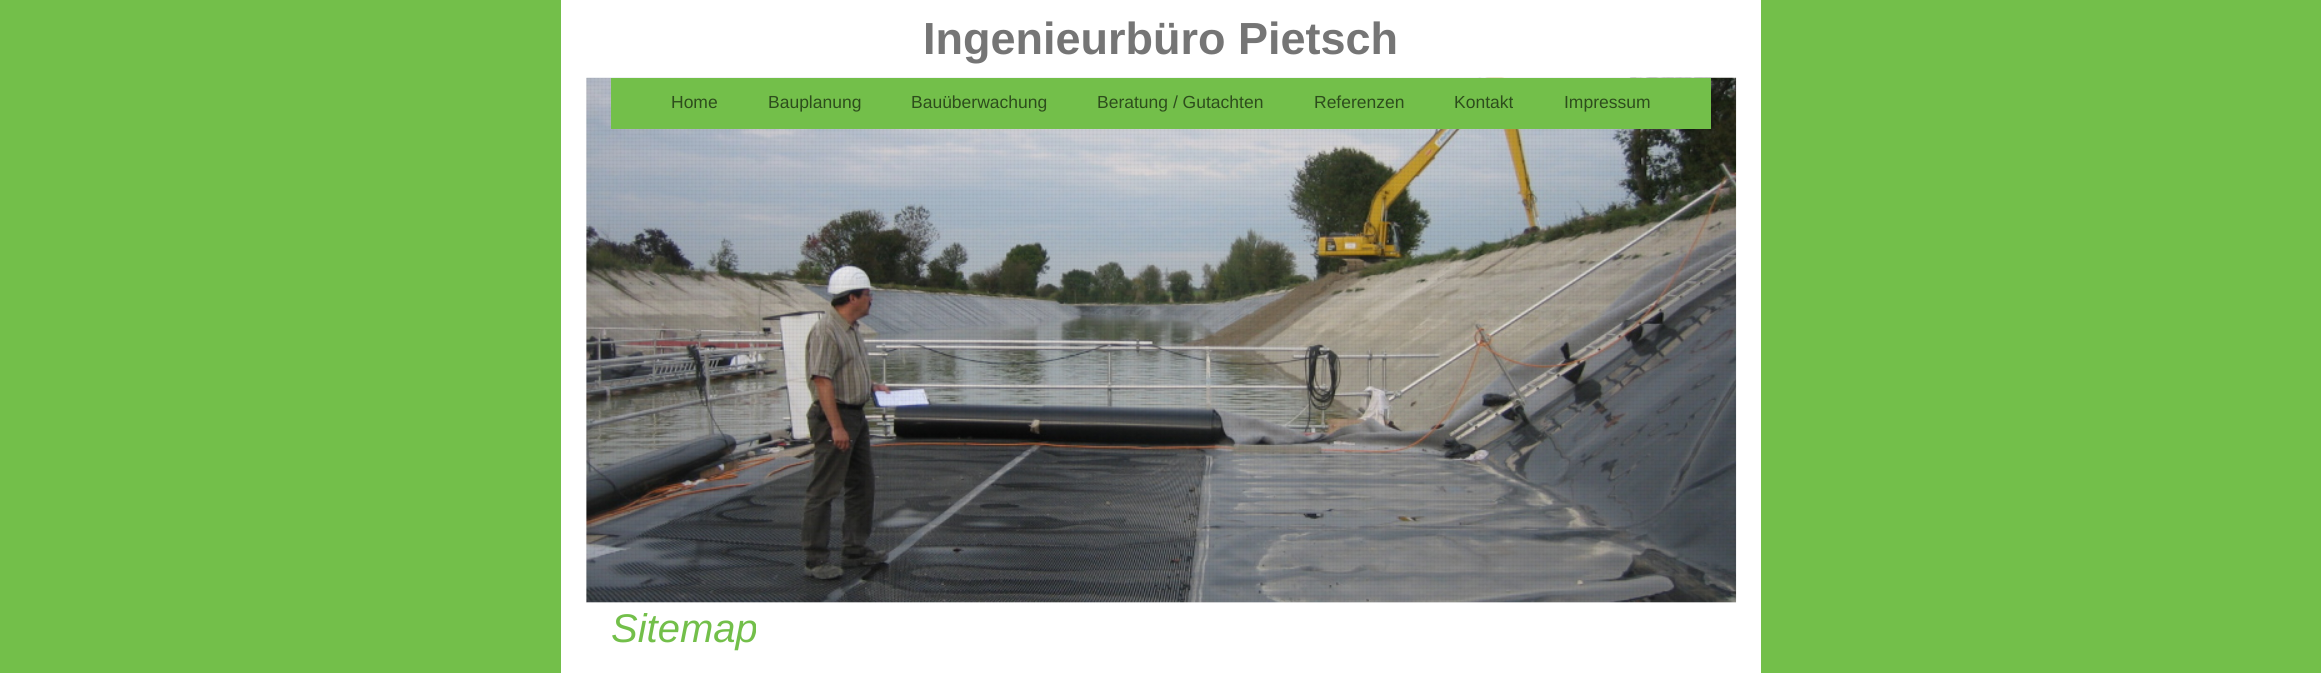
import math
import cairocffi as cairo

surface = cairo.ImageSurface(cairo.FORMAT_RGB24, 2321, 673)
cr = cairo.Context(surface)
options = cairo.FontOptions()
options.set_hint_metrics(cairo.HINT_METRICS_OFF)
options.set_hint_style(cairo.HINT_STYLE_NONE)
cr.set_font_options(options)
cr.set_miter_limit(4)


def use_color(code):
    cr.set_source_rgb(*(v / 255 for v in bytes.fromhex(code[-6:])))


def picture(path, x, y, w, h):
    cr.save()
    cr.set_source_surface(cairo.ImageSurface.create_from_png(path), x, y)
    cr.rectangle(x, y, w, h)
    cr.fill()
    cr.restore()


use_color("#73bf4a")
cr.paint()
use_color("#ffffff")
cr.rectangle(561, 0, 1200, 673)
cr.fill()
cr.select_font_face("Liberation Sans", cairo.FONT_SLANT_NORMAL, cairo.FONT_WEIGHT_BOLD)
cr.set_font_size(45)
use_color("#757575")
cr.move_to(923, 54)
cr.show_text("Ingenieurbüro Pietsch")
use_color("#eeeeee")
cr.rectangle(586, 78, 1150, 525)
cr.fill()
picture("img1.png", 586, 77, 1151, 526)
picture("img2.png", 586, 78, 1150, 524)
use_color("#73bf4a")
cr.rectangle(611, 78, 1100, 51)
cr.fill()
cr.select_font_face("Liberation Sans")
cr.set_font_size(17.5)
use_color("#2d4d1c")
cr.move_to(671, 108)
cr.show_text("Home")
cr.move_to(768, 108)
cr.show_text("Bauplanung")
cr.move_to(911, 108)
cr.show_text("Bauüberwachung")
cr.move_to(1097, 108)
cr.show_text("Beratung / Gutachten")
cr.move_to(1314, 108)
cr.show_text("Referenzen")
cr.move_to(1454, 108)
cr.show_text("Kontakt")
cr.move_to(1564, 108)
cr.show_text("Impressum")
cr.select_font_face("Liberation Sans", cairo.FONT_SLANT_ITALIC)
cr.set_font_size(40)
use_color("#73bf4a")
cr.move_to(611, 642)
cr.show_text("Sitemap")
surface.write_to_png("result.png")
